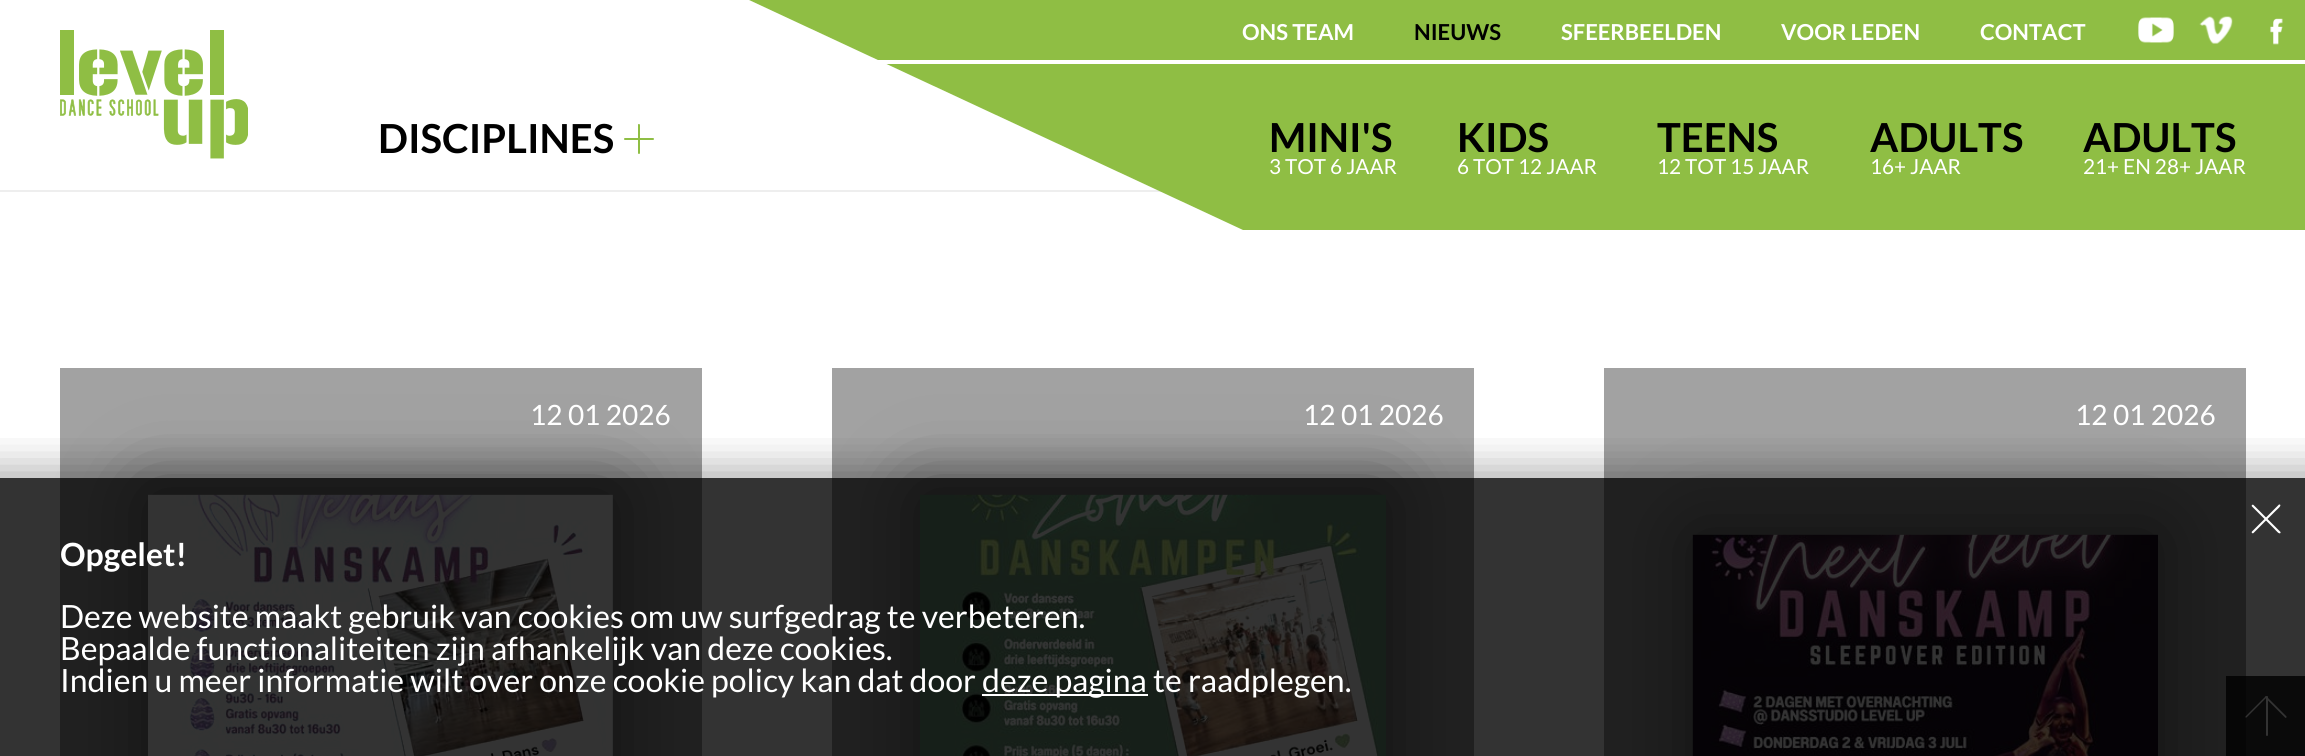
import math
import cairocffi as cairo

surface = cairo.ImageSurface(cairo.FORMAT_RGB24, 2305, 756)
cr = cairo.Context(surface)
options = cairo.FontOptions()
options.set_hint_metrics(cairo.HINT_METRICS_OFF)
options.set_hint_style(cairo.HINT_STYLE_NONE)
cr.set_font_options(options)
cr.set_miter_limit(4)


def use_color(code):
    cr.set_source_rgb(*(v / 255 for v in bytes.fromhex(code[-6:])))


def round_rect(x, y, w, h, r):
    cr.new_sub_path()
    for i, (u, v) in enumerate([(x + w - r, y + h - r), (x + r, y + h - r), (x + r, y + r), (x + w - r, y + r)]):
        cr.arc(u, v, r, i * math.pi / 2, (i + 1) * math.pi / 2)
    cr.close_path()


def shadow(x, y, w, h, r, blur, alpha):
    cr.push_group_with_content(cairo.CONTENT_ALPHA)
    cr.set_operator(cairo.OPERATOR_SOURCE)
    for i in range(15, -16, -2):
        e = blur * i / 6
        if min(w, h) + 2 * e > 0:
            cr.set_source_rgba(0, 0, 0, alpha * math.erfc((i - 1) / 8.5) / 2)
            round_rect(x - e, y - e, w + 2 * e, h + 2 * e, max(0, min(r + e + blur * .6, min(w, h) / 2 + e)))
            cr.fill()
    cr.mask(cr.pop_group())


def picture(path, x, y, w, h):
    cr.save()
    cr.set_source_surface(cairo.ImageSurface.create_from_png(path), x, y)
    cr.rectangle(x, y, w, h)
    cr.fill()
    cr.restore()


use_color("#ffffff")
cr.paint()
use_color("#eeeeee")
cr.rectangle(0, 190, 1162, 2)
cr.fill()
picture("img1.png", 60, 30, 188, 129)
use_color("#8fbe44")
cr.new_path()
cr.move_to(749, 0)
cr.line_to(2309, 0)
cr.line_to(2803, 230)
cr.line_to(1243, 230)
cr.close_path()
cr.fill()
use_color("#ffffff")
cr.rectangle(878, 60, 1427, 4)
cr.fill()
cr.select_font_face("Lato", cairo.FONT_SLANT_NORMAL, cairo.FONT_WEIGHT_BOLD)
cr.set_font_size(22)
cr.move_to(1242, 40)
cr.show_text("ONS TEAM")
use_color("#000000")
cr.move_to(1414, 40)
cr.show_text("NIEUWS")
use_color("#ffffff")
cr.move_to(1561, 40)
cr.show_text("SFEERBEELDEN")
cr.move_to(1781, 40)
cr.show_text("VOOR LEDEN")
cr.move_to(1980, 40)
cr.show_text("CONTACT")
picture("img2.png", 2138, 17, 36, 26)
picture("img3.png", 2199, 16, 34, 28)
picture("img4.png", 2270, 18, 13, 27)
cr.set_font_size(40)
use_color("#000000")
cr.move_to(378, 153)
cr.show_text("DISCIPLINES")
use_color("#8fbe44")
round_rect(624, 138, 30, 2, 1)
cr.fill()
cr.new_path()
cr.move_to(640, 125)
cr.line_to(640, 153)
cr.line_to(639.5, 154)
cr.curve_to(639, 154, 638.5, 154, 638, 153.5)
cr.line_to(638, 124.5)
cr.curve_to(638.5, 123.5, 640, 124, 640, 125)
cr.close_path()
cr.fill()
use_color("#000000")
cr.move_to(1269, 152)
cr.show_text("MINI'S")
cr.select_font_face("Lato")
cr.set_font_size(20.75)
use_color("#ffffff")
cr.move_to(1269, 174)
cr.show_text("3 TOT 6 JAAR")
cr.select_font_face("Lato", cairo.FONT_SLANT_NORMAL, cairo.FONT_WEIGHT_BOLD)
cr.set_font_size(40)
use_color("#000000")
cr.move_to(1457, 152)
cr.show_text("KIDS")
cr.select_font_face("Lato")
cr.set_font_size(20.75)
use_color("#ffffff")
cr.move_to(1457, 174)
cr.show_text("6 TOT 12 JAAR")
cr.select_font_face("Lato", cairo.FONT_SLANT_NORMAL, cairo.FONT_WEIGHT_BOLD)
cr.set_font_size(40)
use_color("#000000")
cr.move_to(1657, 152)
cr.show_text("TEENS")
cr.select_font_face("Lato")
cr.set_font_size(20.75)
use_color("#ffffff")
cr.move_to(1657, 174)
cr.show_text("12 TOT 15 JAAR")
cr.select_font_face("Lato", cairo.FONT_SLANT_NORMAL, cairo.FONT_WEIGHT_BOLD)
cr.set_font_size(40)
use_color("#000000")
cr.move_to(1870, 152)
cr.show_text("ADULTS")
cr.select_font_face("Lato")
cr.set_font_size(20.75)
use_color("#ffffff")
cr.move_to(1870, 174)
cr.show_text("16+ JAAR")
cr.select_font_face("Lato", cairo.FONT_SLANT_NORMAL, cairo.FONT_WEIGHT_BOLD)
cr.set_font_size(40)
use_color("#000000")
cr.move_to(2083, 152)
cr.show_text("ADULTS")
cr.select_font_face("Lato")
cr.set_font_size(20.75)
use_color("#ffffff")
cr.move_to(2083, 174)
cr.show_text("21+ EN 28+ JAAR")
use_color("#a2a2a2")
cr.rectangle(60, 368, 642, 388)
cr.fill()
use_color("#000000")
shadow(148, 494, 466, 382, 0, 40, 0.47)
picture("img5.png", 148, 494, 465, 262)
cr.set_font_size(28)
use_color("#ffffff")
cr.move_to(530, 425)
cr.show_text("12 01 2026")
use_color("#a2a2a2")
cr.rectangle(832, 368, 642, 388)
cr.fill()
use_color("#000000")
shadow(920, 494, 466, 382, 0, 40, 0.47)
picture("img6.png", 920, 494, 466, 262)
use_color("#ffffff")
cr.move_to(1303, 425)
cr.show_text("12 01 2026")
use_color("#a2a2a2")
cr.rectangle(1604, 368, 642, 388)
cr.fill()
use_color("#ffffff")
cr.move_to(2075, 425)
cr.show_text("12 01 2026")
use_color("#000000")
shadow(1692, 534, 466, 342, 0, 40, 0.47)
picture("img7.png", 1692, 534, 466, 222)
cr.set_source_rgba(0, 0, 0, 0.8)
cr.rectangle(2226, 676, 79, 80)
cr.fill()
use_color("#ffffff")
round_rect(2266, 696, 2, 40, 1)
cr.fill()
cr.new_path()
cr.move_to(2265.5, 696.5)
cr.line_to(2266, 696)
cr.line_to(2286.5, 716.5)
cr.line_to(2286.5, 717.5)
cr.line_to(2285.5, 718)
cr.line_to(2265, 697.5)
cr.close_path()
cr.fill()
cr.new_path()
cr.move_to(2266.5, 696.5)
cr.line_to(2267, 697)
cr.line_to(2246.5, 717.5)
cr.line_to(2245.5, 717.5)
cr.line_to(2245.5, 716.5)
cr.line_to(2266, 696)
cr.close_path()
cr.fill()
cr.save()
cr.rectangle(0, 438, 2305, 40)
cr.clip()
use_color("#000000")
shadow(-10, 468, 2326, 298, 0, 20, 0.31)
cr.restore()
cr.set_source_rgba(0, 0, 0, 0.8)
cr.rectangle(0, 478, 2305, 278)
cr.fill()
use_color("#ffffff")
cr.new_path()
cr.move_to(2252, 531.5)
cr.line_to(2279, 504.5)
cr.line_to(2280, 504.5)
cr.curve_to(2281.5, 506, 2278, 508.5, 2275.5, 511)
cr.line_to(2253.5, 533)
cr.curve_to(2252.5, 534, 2251, 532.5, 2252, 531.5)
cr.close_path()
cr.fill()
cr.new_path()
cr.move_to(2253.5, 505)
cr.line_to(2280.5, 532)
cr.line_to(2280.5, 533)
cr.curve_to(2279, 534.5, 2276.5, 531, 2274, 528.5)
cr.line_to(2252, 506.5)
cr.curve_to(2251, 505.5, 2252.5, 504, 2253.5, 505)
cr.close_path()
cr.fill()
cr.select_font_face("Lato", cairo.FONT_SLANT_NORMAL, cairo.FONT_WEIGHT_BOLD)
cr.set_font_size(32)
cr.move_to(60, 566)
cr.show_text("Opgelet!")
cr.select_font_face("Lato")
cr.move_to(60, 628)
cr.show_text("Deze website maakt gebruik van cookies om uw surfgedrag te verbeteren.")
cr.move_to(60, 660)
cr.show_text("Bepaalde functionaliteiten zijn afhankelijk van deze cookies.")
cr.move_to(60, 692)
cr.show_text("Indien u meer informatie wilt over onze cookie policy kan dat door")
cr.rectangle(982, 694, 166, 2)
cr.fill()
cr.move_to(982, 692)
cr.show_text("deze pagina te raadplegen.")
surface.write_to_png("result.png")
